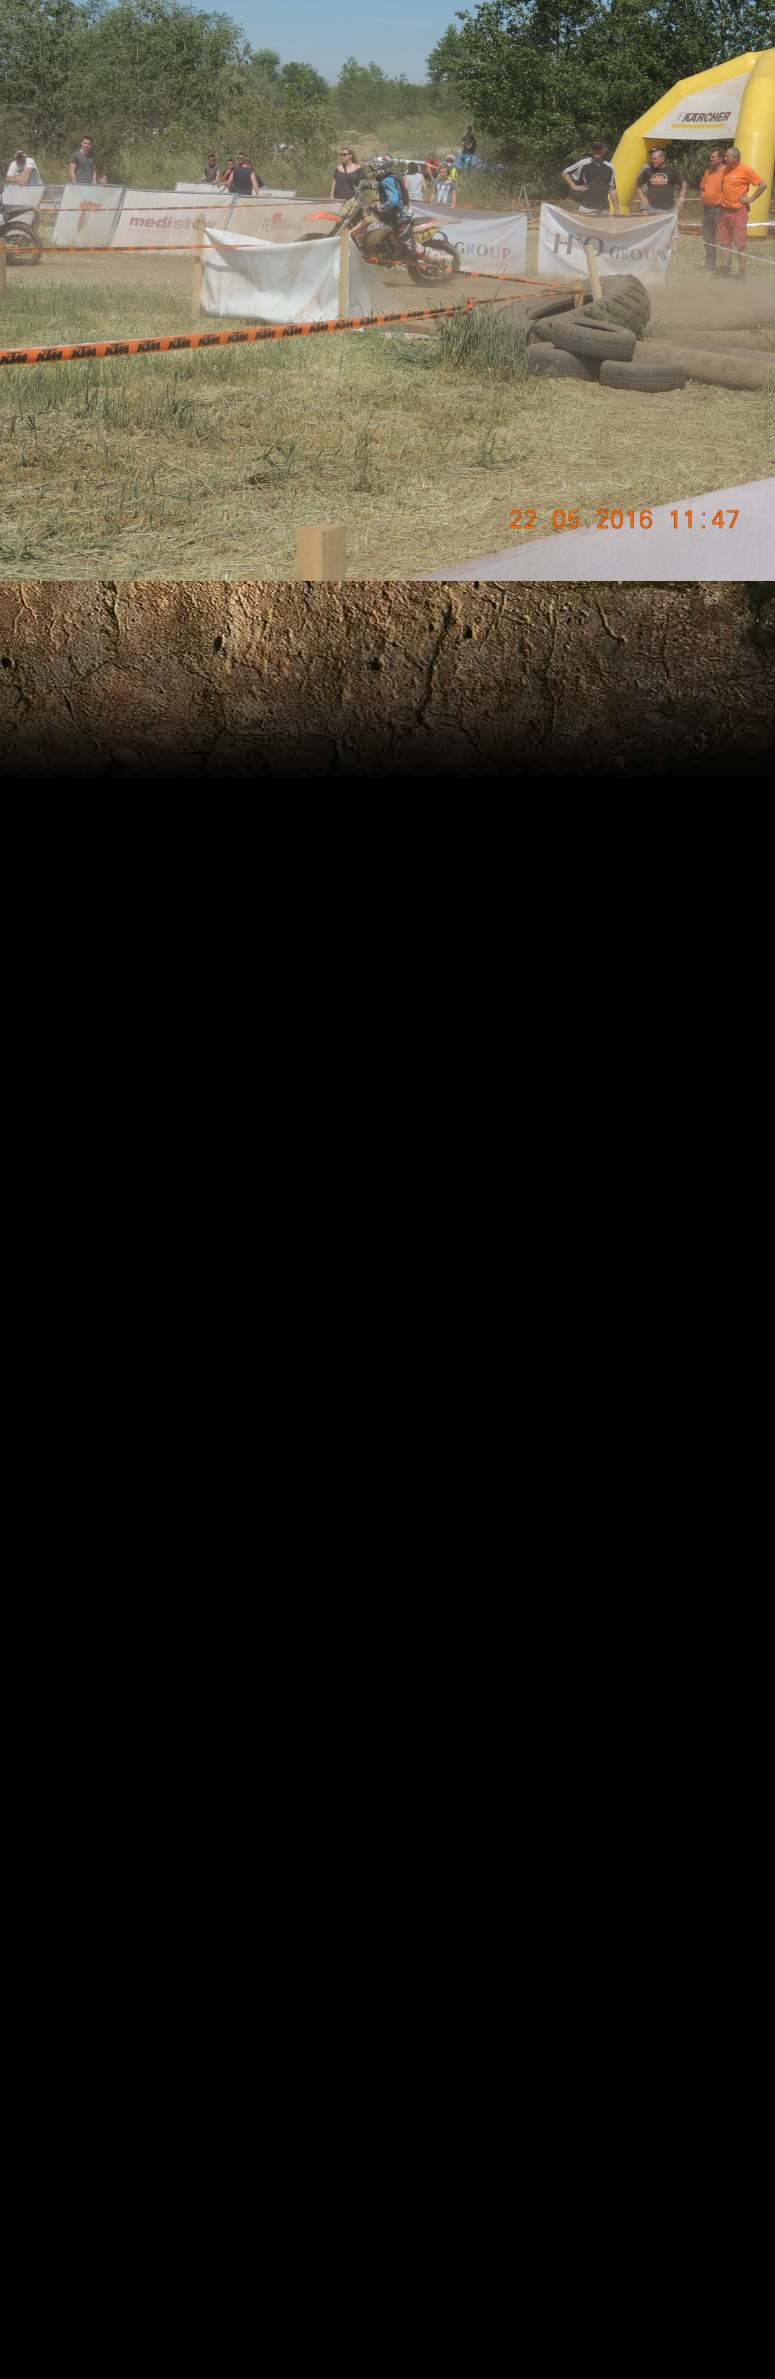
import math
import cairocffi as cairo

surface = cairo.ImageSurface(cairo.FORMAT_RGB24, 775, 2379)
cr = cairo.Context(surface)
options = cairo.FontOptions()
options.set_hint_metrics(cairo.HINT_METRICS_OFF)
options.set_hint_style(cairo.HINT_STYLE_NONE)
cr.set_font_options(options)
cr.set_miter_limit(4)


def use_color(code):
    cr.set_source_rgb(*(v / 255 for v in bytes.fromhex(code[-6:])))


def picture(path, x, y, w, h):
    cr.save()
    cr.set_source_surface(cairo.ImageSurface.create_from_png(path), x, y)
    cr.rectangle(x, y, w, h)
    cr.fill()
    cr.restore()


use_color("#000000")
cr.paint()
picture("img1.png", 0, 581, 775, 198)
picture("img2.png", 0, 0, 775, 581)
surface.write_to_png("result.png")
